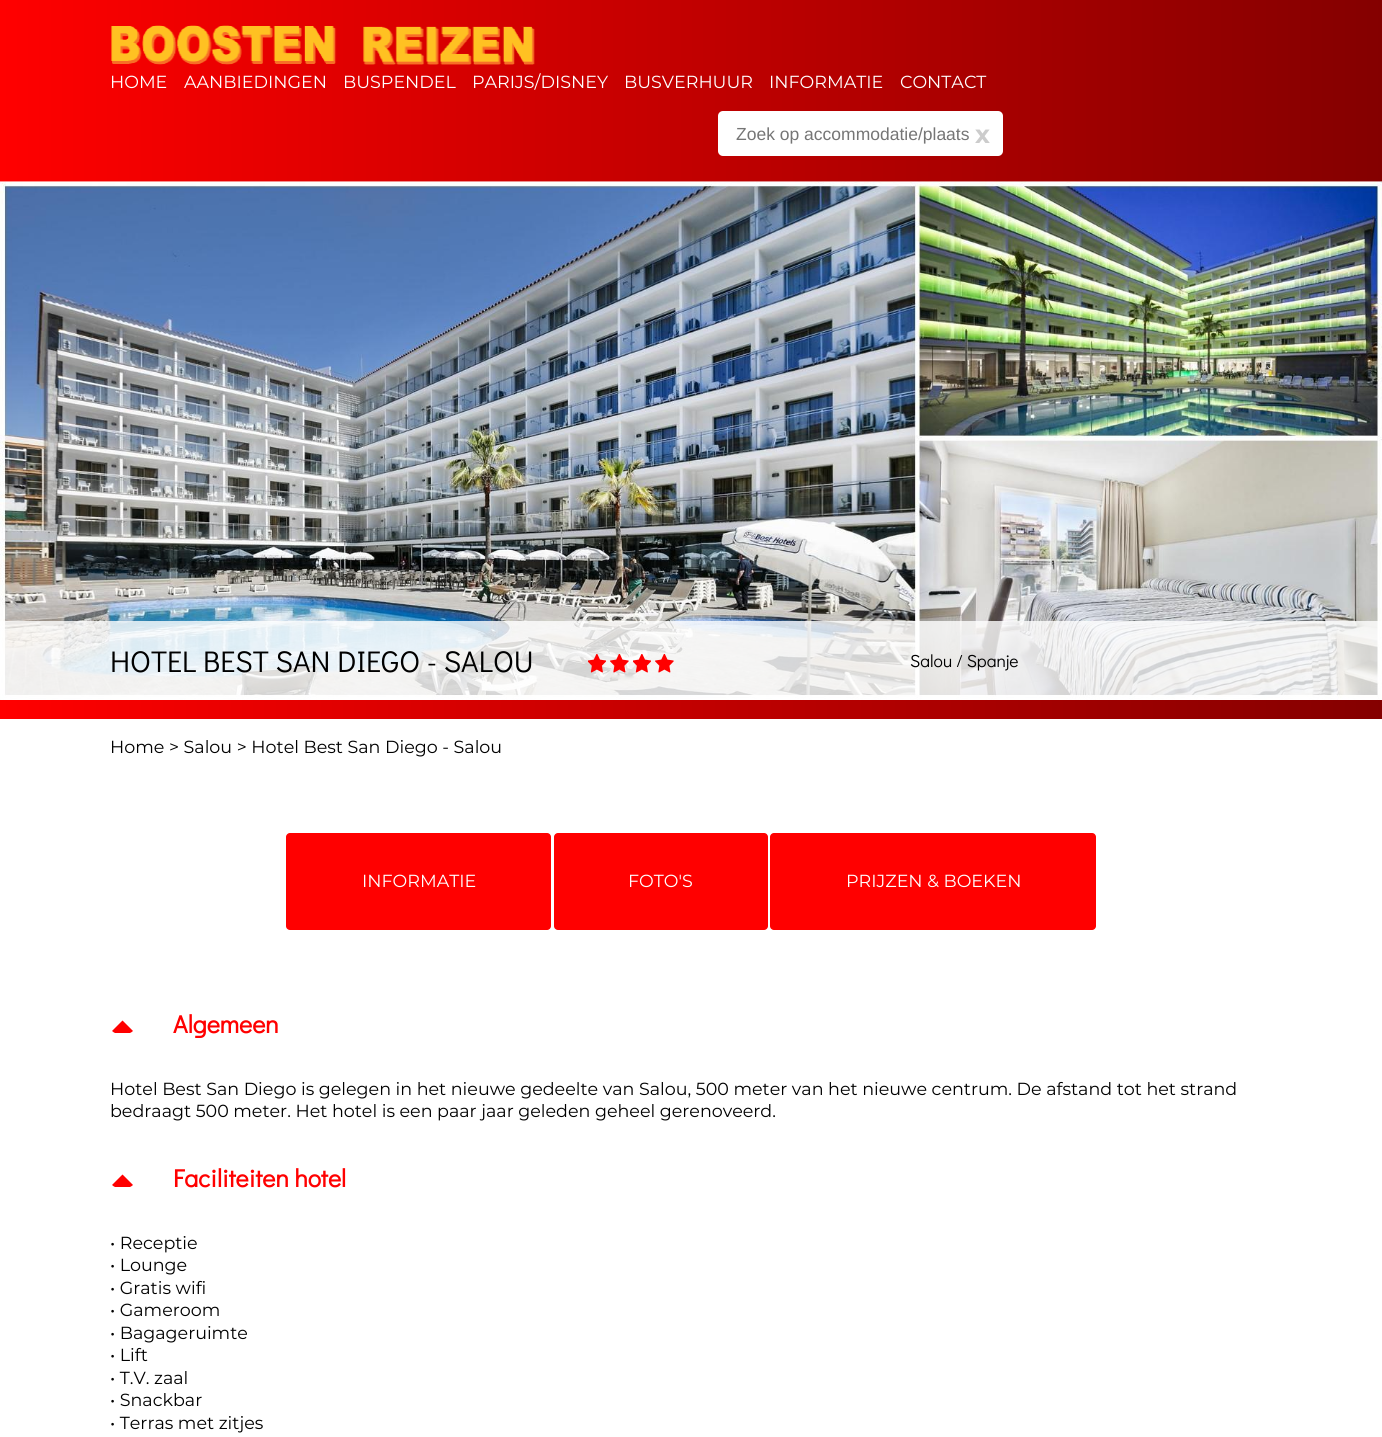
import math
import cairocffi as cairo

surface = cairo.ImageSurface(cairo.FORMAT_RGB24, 1382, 1437)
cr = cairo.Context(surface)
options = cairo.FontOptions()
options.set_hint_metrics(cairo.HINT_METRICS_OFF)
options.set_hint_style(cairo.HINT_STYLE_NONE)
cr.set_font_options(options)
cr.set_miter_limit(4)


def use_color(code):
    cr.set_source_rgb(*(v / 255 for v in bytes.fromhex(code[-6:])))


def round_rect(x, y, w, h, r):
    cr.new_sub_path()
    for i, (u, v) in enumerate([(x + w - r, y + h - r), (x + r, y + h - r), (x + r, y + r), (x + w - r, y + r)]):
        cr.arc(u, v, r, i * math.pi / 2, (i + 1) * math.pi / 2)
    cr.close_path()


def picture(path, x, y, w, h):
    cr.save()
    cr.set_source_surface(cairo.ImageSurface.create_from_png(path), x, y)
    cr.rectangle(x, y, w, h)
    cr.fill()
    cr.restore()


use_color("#ffffff")
cr.paint()
gradient = cairo.LinearGradient(0, 91, 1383, 91)
gradient.add_color_stop_rgba(0, 1, 0, 0, 1)
gradient.add_color_stop_rgba(1, 0.518, 0, 0, 1)
cr.set_source(gradient)
cr.rectangle(0, 0, 1382, 181)
cr.fill()
picture("img1.png", 111, 25, 424, 40)
cr.select_font_face("Montserrat")
cr.set_font_size(17.5)
use_color("#ffffff")
cr.move_to(110, 88)
cr.show_text("HOME")
cr.move_to(184, 88)
cr.show_text("AANBIEDINGEN")
cr.move_to(343, 88)
cr.show_text("BUSPENDEL")
cr.move_to(472, 88)
cr.show_text("PARIJS/DISNEY")
cr.move_to(624, 88)
cr.show_text("BUSVERHUUR")
cr.move_to(769, 88)
cr.show_text("INFORMATIE")
cr.move_to(900, 88)
cr.show_text("CONTACT")
round_rect(718, 111, 285, 45, 5)
cr.fill()
cr.select_font_face("Liberation Sans")
use_color("#757575")
cr.move_to(736, 140)
cr.show_text("Zoek op accommodatie/plaats")
cr.select_font_face("Montserrat", cairo.FONT_SLANT_NORMAL, cairo.FONT_WEIGHT_BOLD)
cr.set_font_size(25)
use_color("#cccccc")
cr.move_to(975, 143)
cr.show_text("x")
gradient = cairo.LinearGradient(0, 191, 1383, 191)
gradient.add_color_stop_rgba(0, 1, 0, 0, 1)
gradient.add_color_stop_rgba(1, 0.518, 0, 0, 1)
cr.set_source(gradient)
cr.rectangle(0, 181, 1382, 538)
cr.fill()
picture("img2.png", 0, 181, 1382, 519)
cr.set_source_rgba(1, 1, 1, 0.8)
cr.rectangle(0, 621, 1382, 79)
cr.fill()
cr.select_font_face("Didact Gothic")
cr.set_font_size(30)
use_color("#000000")
cr.move_to(110, 672)
cr.show_text("HOTEL BEST SAN DIEGO - SALOU")
picture("img3.png", 588, 654, 18, 19)
picture("img4.png", 610, 654, 19, 19)
picture("img5.png", 633, 654, 18, 19)
picture("img6.png", 655, 654, 19, 19)
cr.set_font_size(17.5)
cr.move_to(910, 667)
cr.show_text("Salou / Spanje")
cr.select_font_face("Montserrat")
cr.move_to(110, 753)
cr.show_text("Home > Salou > Hotel Best San Diego - Salou")
use_color("#ff0000")
round_rect(286, 833, 265, 97, 4)
cr.fill()
use_color("#ffffff")
cr.move_to(362, 887)
cr.show_text("INFORMATIE")
use_color("#ff0000")
round_rect(554, 833, 214, 97, 4)
cr.fill()
use_color("#ffffff")
cr.move_to(628, 887)
cr.show_text("FOTO'S")
use_color("#ff0000")
round_rect(770, 833, 326, 97, 4)
cr.fill()
use_color("#ffffff")
cr.move_to(846, 887)
cr.show_text("PRIJZEN & BOEKEN")
use_color("#ff0000")
cr.new_path()
cr.move_to(130, 1033)
cr.line_to(115, 1033)
cr.curve_to(114, 1032.5, 113, 1032, 112, 1031)
cr.line_to(122.5, 1020.5)
cr.line_to(133, 1031)
cr.curve_to(132, 1032, 131, 1032.5, 130, 1033)
cr.close_path()
cr.fill()
cr.select_font_face("Didact Gothic", cairo.FONT_SLANT_NORMAL, cairo.FONT_WEIGHT_BOLD)
cr.set_font_size(25)
cr.move_to(173, 1033)
cr.show_text("Algemeen")
cr.select_font_face("Montserrat")
cr.set_font_size(17.5)
use_color("#000000")
cr.move_to(110, 1095)
cr.show_text("Hotel Best San Diego is gelegen in het nieuwe gedeelte van Salou, 500 meter van het nieuwe centrum. De afstand tot het strand")
cr.move_to(110, 1117)
cr.show_text("bedraagt 500 meter. Het hotel is een paar jaar geleden geheel gerenoveerd.")
use_color("#ff0000")
cr.new_path()
cr.move_to(130, 1187)
cr.line_to(115, 1187)
cr.curve_to(114, 1186.5, 113, 1186, 112, 1185)
cr.line_to(122.5, 1174.5)
cr.line_to(133, 1185)
cr.curve_to(132, 1186, 131, 1186.5, 130, 1187)
cr.close_path()
cr.fill()
cr.select_font_face("Didact Gothic", cairo.FONT_SLANT_NORMAL, cairo.FONT_WEIGHT_BOLD)
cr.set_font_size(25)
cr.move_to(173, 1187)
cr.show_text("Faciliteiten hotel")
cr.select_font_face("Montserrat")
cr.set_font_size(17.5)
use_color("#000000")
cr.move_to(110, 1249)
cr.show_text("• Receptie")
cr.move_to(110, 1271)
cr.show_text("• Lounge")
cr.move_to(110, 1294)
cr.show_text("• Gratis wifi")
cr.move_to(110, 1316)
cr.show_text("• Gameroom")
cr.move_to(110, 1339)
cr.show_text("• Bagageruimte")
cr.move_to(110, 1361)
cr.show_text("• Lift")
cr.move_to(110, 1384)
cr.show_text("• T.V. zaal")
cr.move_to(110, 1406)
cr.show_text("• Snackbar")
cr.move_to(110, 1429)
cr.show_text("• Terras met zitjes")
surface.write_to_png("result.png")
